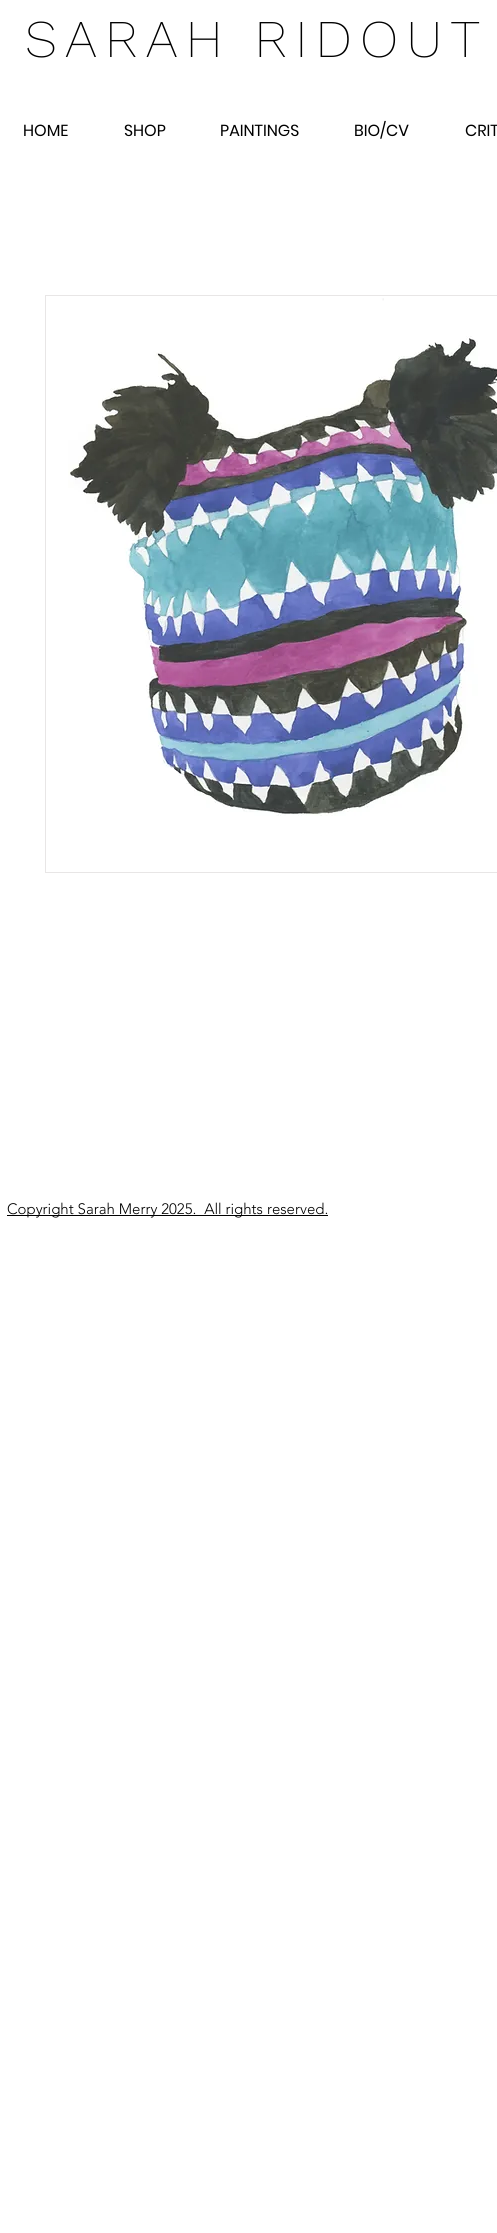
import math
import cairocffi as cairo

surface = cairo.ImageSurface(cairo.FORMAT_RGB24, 497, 2233)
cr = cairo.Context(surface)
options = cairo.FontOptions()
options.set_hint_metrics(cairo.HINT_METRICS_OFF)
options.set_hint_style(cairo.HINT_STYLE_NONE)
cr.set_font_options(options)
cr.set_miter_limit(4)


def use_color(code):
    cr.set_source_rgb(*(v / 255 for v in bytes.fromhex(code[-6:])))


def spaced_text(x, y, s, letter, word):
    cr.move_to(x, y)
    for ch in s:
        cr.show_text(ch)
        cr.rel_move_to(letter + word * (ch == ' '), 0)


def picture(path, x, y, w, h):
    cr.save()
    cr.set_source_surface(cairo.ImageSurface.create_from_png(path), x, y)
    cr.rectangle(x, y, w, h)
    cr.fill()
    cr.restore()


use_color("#ffffff")
cr.paint()
cr.select_font_face("Work Sans ExtraLight")
cr.set_font_size(53)
use_color("#000000")
spaced_text(25, 57, "SARAH RIDOUT", 8, 0)
cr.select_font_face("Poppins")
cr.set_font_size(16)
cr.move_to(23, 136)
cr.show_text("HOME")
cr.move_to(124, 136)
cr.show_text("SHOP")
cr.move_to(220, 136)
cr.show_text("PAINTINGS")
cr.move_to(354, 136)
cr.show_text("BIO/CV")
cr.move_to(465, 136)
cr.show_text("CRIT")
cr.rectangle(45.5, 295.5, 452, 577)
use_color("#e8e6e6")
cr.set_line_width(1)
cr.stroke()
picture("img1.png", 68, 298, 429, 518)
use_color("#000000")
cr.rectangle(7, 1215, 321, 1)
cr.fill()
cr.select_font_face("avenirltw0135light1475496 Light")
cr.set_font_size(15)
cr.move_to(7, 1214)
cr.show_text("Copyright Sarah Merry 2025.  All rights reserved.")
surface.write_to_png("result.png")
